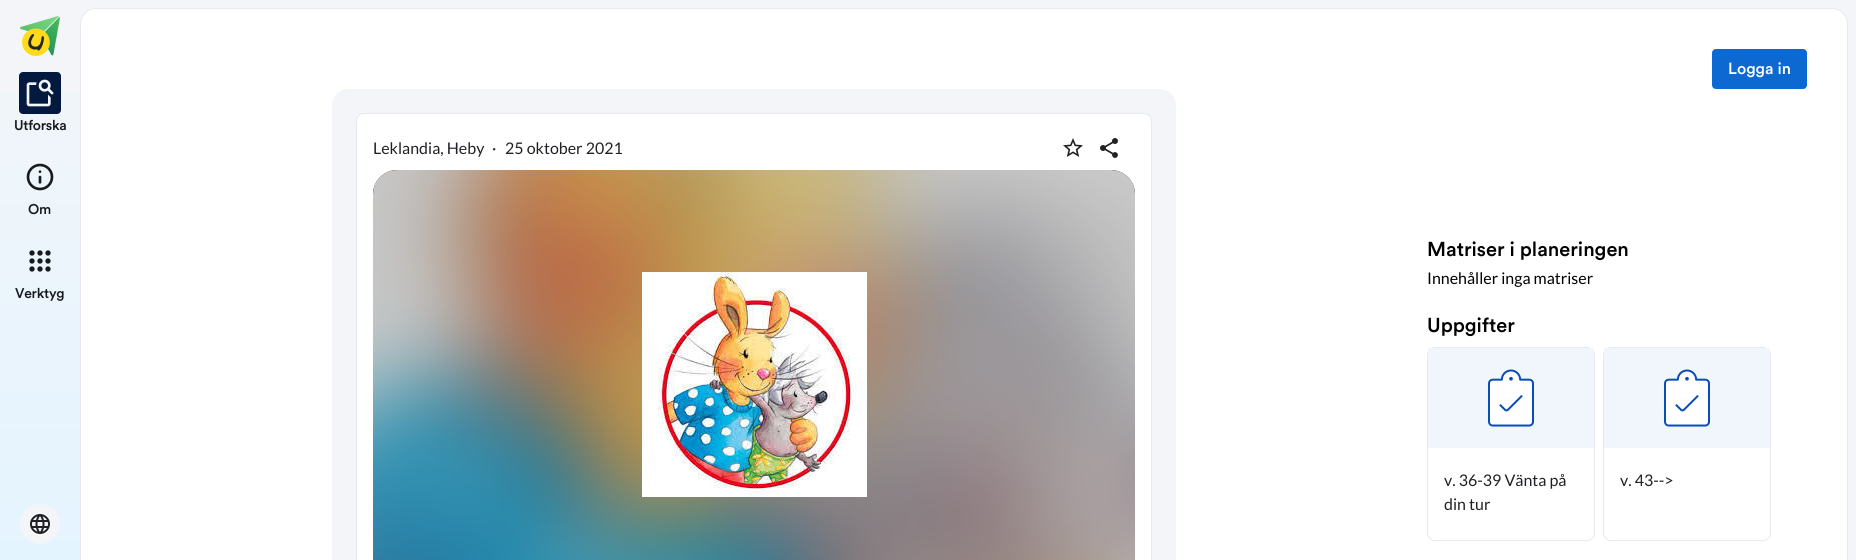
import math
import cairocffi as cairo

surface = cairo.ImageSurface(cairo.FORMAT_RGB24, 1856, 560)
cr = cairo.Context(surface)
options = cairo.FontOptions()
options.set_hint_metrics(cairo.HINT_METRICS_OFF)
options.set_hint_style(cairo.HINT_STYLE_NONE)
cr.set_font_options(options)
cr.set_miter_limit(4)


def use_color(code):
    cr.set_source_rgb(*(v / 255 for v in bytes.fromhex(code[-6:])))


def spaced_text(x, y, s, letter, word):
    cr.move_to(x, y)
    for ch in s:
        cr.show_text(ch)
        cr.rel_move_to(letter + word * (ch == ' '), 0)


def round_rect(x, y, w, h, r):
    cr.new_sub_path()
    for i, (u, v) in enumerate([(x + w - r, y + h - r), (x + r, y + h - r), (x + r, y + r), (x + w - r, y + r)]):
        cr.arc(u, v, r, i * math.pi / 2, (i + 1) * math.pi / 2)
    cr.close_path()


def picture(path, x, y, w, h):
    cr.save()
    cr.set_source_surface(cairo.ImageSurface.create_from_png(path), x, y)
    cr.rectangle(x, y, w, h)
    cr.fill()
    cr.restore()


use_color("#f3f5f9")
cr.paint()
gradient = cairo.LinearGradient(40, 0, 40, 560)
gradient.add_color_stop_rgba(0, 0.953, 0.961, 0.976, 1)
gradient.add_color_stop_rgba(1, 0.894, 0.957, 1, 1)
cr.set_source(gradient)
cr.rectangle(0, 93, 80, 467)
cr.fill()
picture("img1.png", 20, 16, 40, 40)
use_color("#031a3e")
round_rect(19, 72, 42, 42, 4)
cr.fill()
picture("img2.png", 26, 79, 28, 28)
cr.select_font_face("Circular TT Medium")
cr.set_font_size(14)
use_color("#181a1d")
spaced_text(14, 130, "Utforska", -0.25, 0)
picture("img3.png", 26, 163, 28, 28)
spaced_text(28, 214, "Om", -0.25, 0)
picture("img4.png", 29, 250, 22, 22)
spaced_text(15, 298, "Verktyg", -0.25, 0)
use_color("#f3f5f9")
cr.new_path()
cr.arc(40, 524, 20, 0, 2 * math.pi)
cr.fill()
picture("img5.png", 30, 514, 20, 20)
use_color("#ffffff")
round_rect(80.5, 8.5, 1767, 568, 15.5)
cr.fill_preserve()
use_color("#e6e9f0")
cr.set_line_width(1)
cr.stroke()
use_color("#0c69d2")
round_rect(1712, 49, 95, 40, 4)
cr.fill()
cr.set_font_size(16)
use_color("#ffffff")
cr.move_to(1728, 74)
cr.show_text("Logga in")
use_color("#f3f5f9")
round_rect(332, 89, 844, 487, 16)
cr.fill()
use_color("#ffffff")
round_rect(356.5, 113.5, 795, 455, 7.5)
cr.fill_preserve()
use_color("#e6e9f0")
cr.stroke()
cr.select_font_face("Lato")
use_color("#1f2124")
cr.move_to(373, 154)
cr.show_text("Leklandia, Heby")
cr.move_to(492, 154)
cr.show_text("·")
cr.move_to(505, 154)
cr.show_text("25 oktober 2021")
picture("img6.png", 1063, 138, 20, 19)
picture("img7.png", 1100, 138, 18, 20)
use_color("#111111")
round_rect(373, 170, 762, 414, 24)
cr.fill()
picture("img8.png", 373, 170, 762, 390)
picture("img9.png", 642, 272, 225, 225)
cr.select_font_face("Circular TT Medium")
cr.set_font_size(20)
use_color("#000000")
cr.move_to(1427, 256)
cr.show_text("Matriser i planeringen")
cr.select_font_face("Lato")
cr.set_font_size(16)
cr.move_to(1427, 284)
cr.show_text("Innehåller inga matriser")
cr.select_font_face("Circular TT Medium")
cr.set_font_size(20)
cr.move_to(1427, 332)
cr.show_text("Uppgifter")
round_rect(1427.5, 347.5, 167, 193, 7.5)
use_color("#e6e9f0")
cr.stroke()
use_color("#f1f6fd")
cr.rectangle(1428, 348, 166, 100)
cr.fill()
picture("img10.png", 1488, 369, 46, 58)
cr.select_font_face("Lato")
cr.set_font_size(16)
use_color("#1f2124")
cr.move_to(1444, 486)
cr.show_text("v. 36-39 Vänta på")
cr.move_to(1444, 510)
cr.show_text("din tur")
round_rect(1603.5, 347.5, 167, 193, 7.5)
use_color("#e6e9f0")
cr.stroke()
use_color("#f1f6fd")
cr.rectangle(1604, 348, 166, 100)
cr.fill()
picture("img10.png", 1664, 369, 46, 58)
use_color("#1f2124")
cr.move_to(1620, 486)
cr.show_text("v. 43-->")
surface.write_to_png("result.png")
